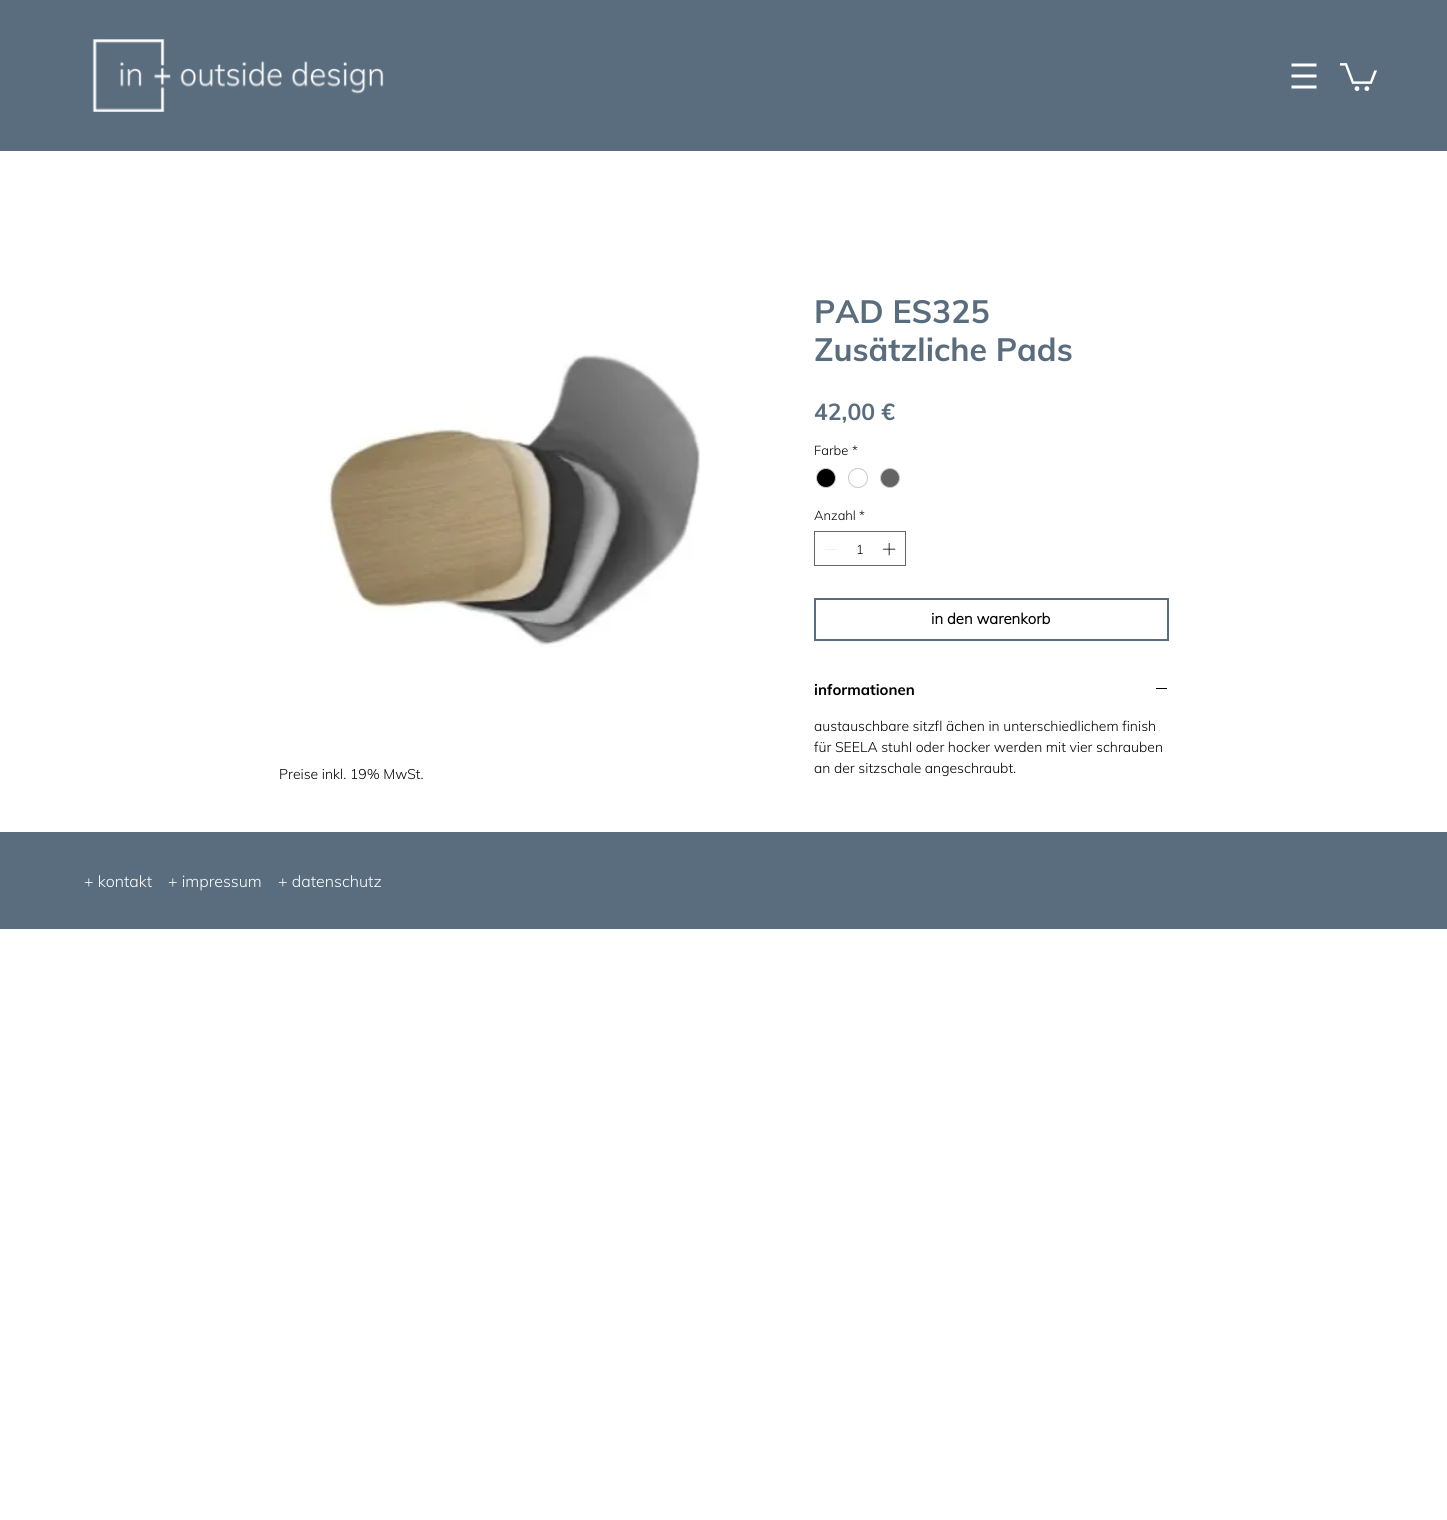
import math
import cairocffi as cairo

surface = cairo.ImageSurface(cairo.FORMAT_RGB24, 1447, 1520)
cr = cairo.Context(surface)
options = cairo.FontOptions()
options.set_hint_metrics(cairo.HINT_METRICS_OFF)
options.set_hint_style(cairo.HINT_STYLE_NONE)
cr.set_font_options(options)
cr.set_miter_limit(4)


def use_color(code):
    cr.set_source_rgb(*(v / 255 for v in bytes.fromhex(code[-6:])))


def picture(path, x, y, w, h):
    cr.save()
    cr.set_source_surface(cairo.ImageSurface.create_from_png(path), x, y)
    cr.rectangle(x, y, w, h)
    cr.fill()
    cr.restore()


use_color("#ffffff")
cr.paint()
use_color("#5a6d7e")
cr.rectangle(0, 0, 1447, 151)
cr.fill()
picture("img1.png", 92, 39, 292, 73)
picture("img2.png", 1291, 63, 26, 26)
picture("img3.png", 1340, 63, 37, 28)
picture("img4.png", 328, 354, 372, 293)
cr.select_font_face("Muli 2 Light")
cr.set_font_size(14)
use_color("#000000")
cr.move_to(279, 779)
cr.show_text("Preise inkl. 19% MwSt.")
cr.select_font_face("Muli", cairo.FONT_SLANT_NORMAL, cairo.FONT_WEIGHT_BOLD)
cr.set_font_size(32)
use_color("#5a6d7e")
cr.move_to(814, 323)
cr.show_text("PAD ES325")
cr.move_to(814, 361)
cr.show_text("Zusätzliche Pads")
cr.select_font_face("Muli 2", cairo.FONT_SLANT_NORMAL, cairo.FONT_WEIGHT_BOLD)
cr.set_font_size(23)
cr.move_to(814, 420)
cr.show_text("42,00 €")
cr.select_font_face("Muli 2 Light")
cr.set_font_size(13)
use_color("#000000")
cr.move_to(814, 455)
cr.show_text("Farbe")
cr.move_to(852, 455)
cr.show_text("*")
cr.new_path()
cr.arc(826, 478, 9.5, 0, 2 * math.pi)
cr.fill_preserve()
use_color("#c9c9c9")
cr.set_line_width(1)
cr.stroke()
cr.arc(858, 478, 9.5, 0, 2 * math.pi)
cr.stroke()
use_color("#636363")
cr.arc(890, 478, 9.5, 0, 2 * math.pi)
cr.fill_preserve()
use_color("#c9c9c9")
cr.stroke()
use_color("#000000")
cr.move_to(814, 520)
cr.show_text("Anzahl")
cr.move_to(859, 520)
cr.show_text("*")
cr.rectangle(814.5, 531.5, 91, 34)
use_color("#666666")
cr.stroke()
use_color("#e3e3e3")
cr.set_fill_rule(cairo.FILL_RULE_EVEN_ODD)
cr.new_path()
cr.move_to(837, 549)
cr.line_to(837, 549.5)
cr.line_to(825, 549.5)
cr.line_to(825, 549)
cr.close_path()
cr.fill()
use_color("#000000")
cr.move_to(856, 554)
cr.show_text("1")
picture("img5.png", 883, 543, 13, 13)
cr.rectangle(815, 599, 353, 41)
use_color("#5a6d7e")
cr.set_line_width(2)
cr.stroke()
cr.select_font_face("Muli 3", cairo.FONT_SLANT_NORMAL, cairo.FONT_WEIGHT_BOLD)
cr.set_font_size(15)
use_color("#000000")
cr.move_to(931, 624)
cr.show_text("in den warenkorb")
cr.select_font_face("Muli", cairo.FONT_SLANT_NORMAL, cairo.FONT_WEIGHT_BOLD)
cr.move_to(814, 695)
cr.show_text("informationen")
cr.rectangle(1156, 688, 11, 1)
cr.fill()
cr.select_font_face("Muli Light")
cr.set_font_size(14)
cr.move_to(814, 731)
cr.show_text("austauschbare sitzfl ächen in unterschiedlichem finish")
cr.move_to(814, 752)
cr.show_text("für SEELA stuhl oder hocker werden mit vier schrauben")
cr.move_to(814, 773)
cr.show_text("an der sitzschale angeschraubt.")
use_color("#5a6d7e")
cr.rectangle(0, 832, 1447, 97)
cr.fill()
cr.select_font_face("Muli 2 Light")
cr.set_font_size(16)
use_color("#ffffff")
cr.move_to(84, 887)
cr.show_text("+ kontakt")
cr.move_to(168, 887)
cr.show_text("+ impressum    + datenschutz")
surface.write_to_png("result.png")
